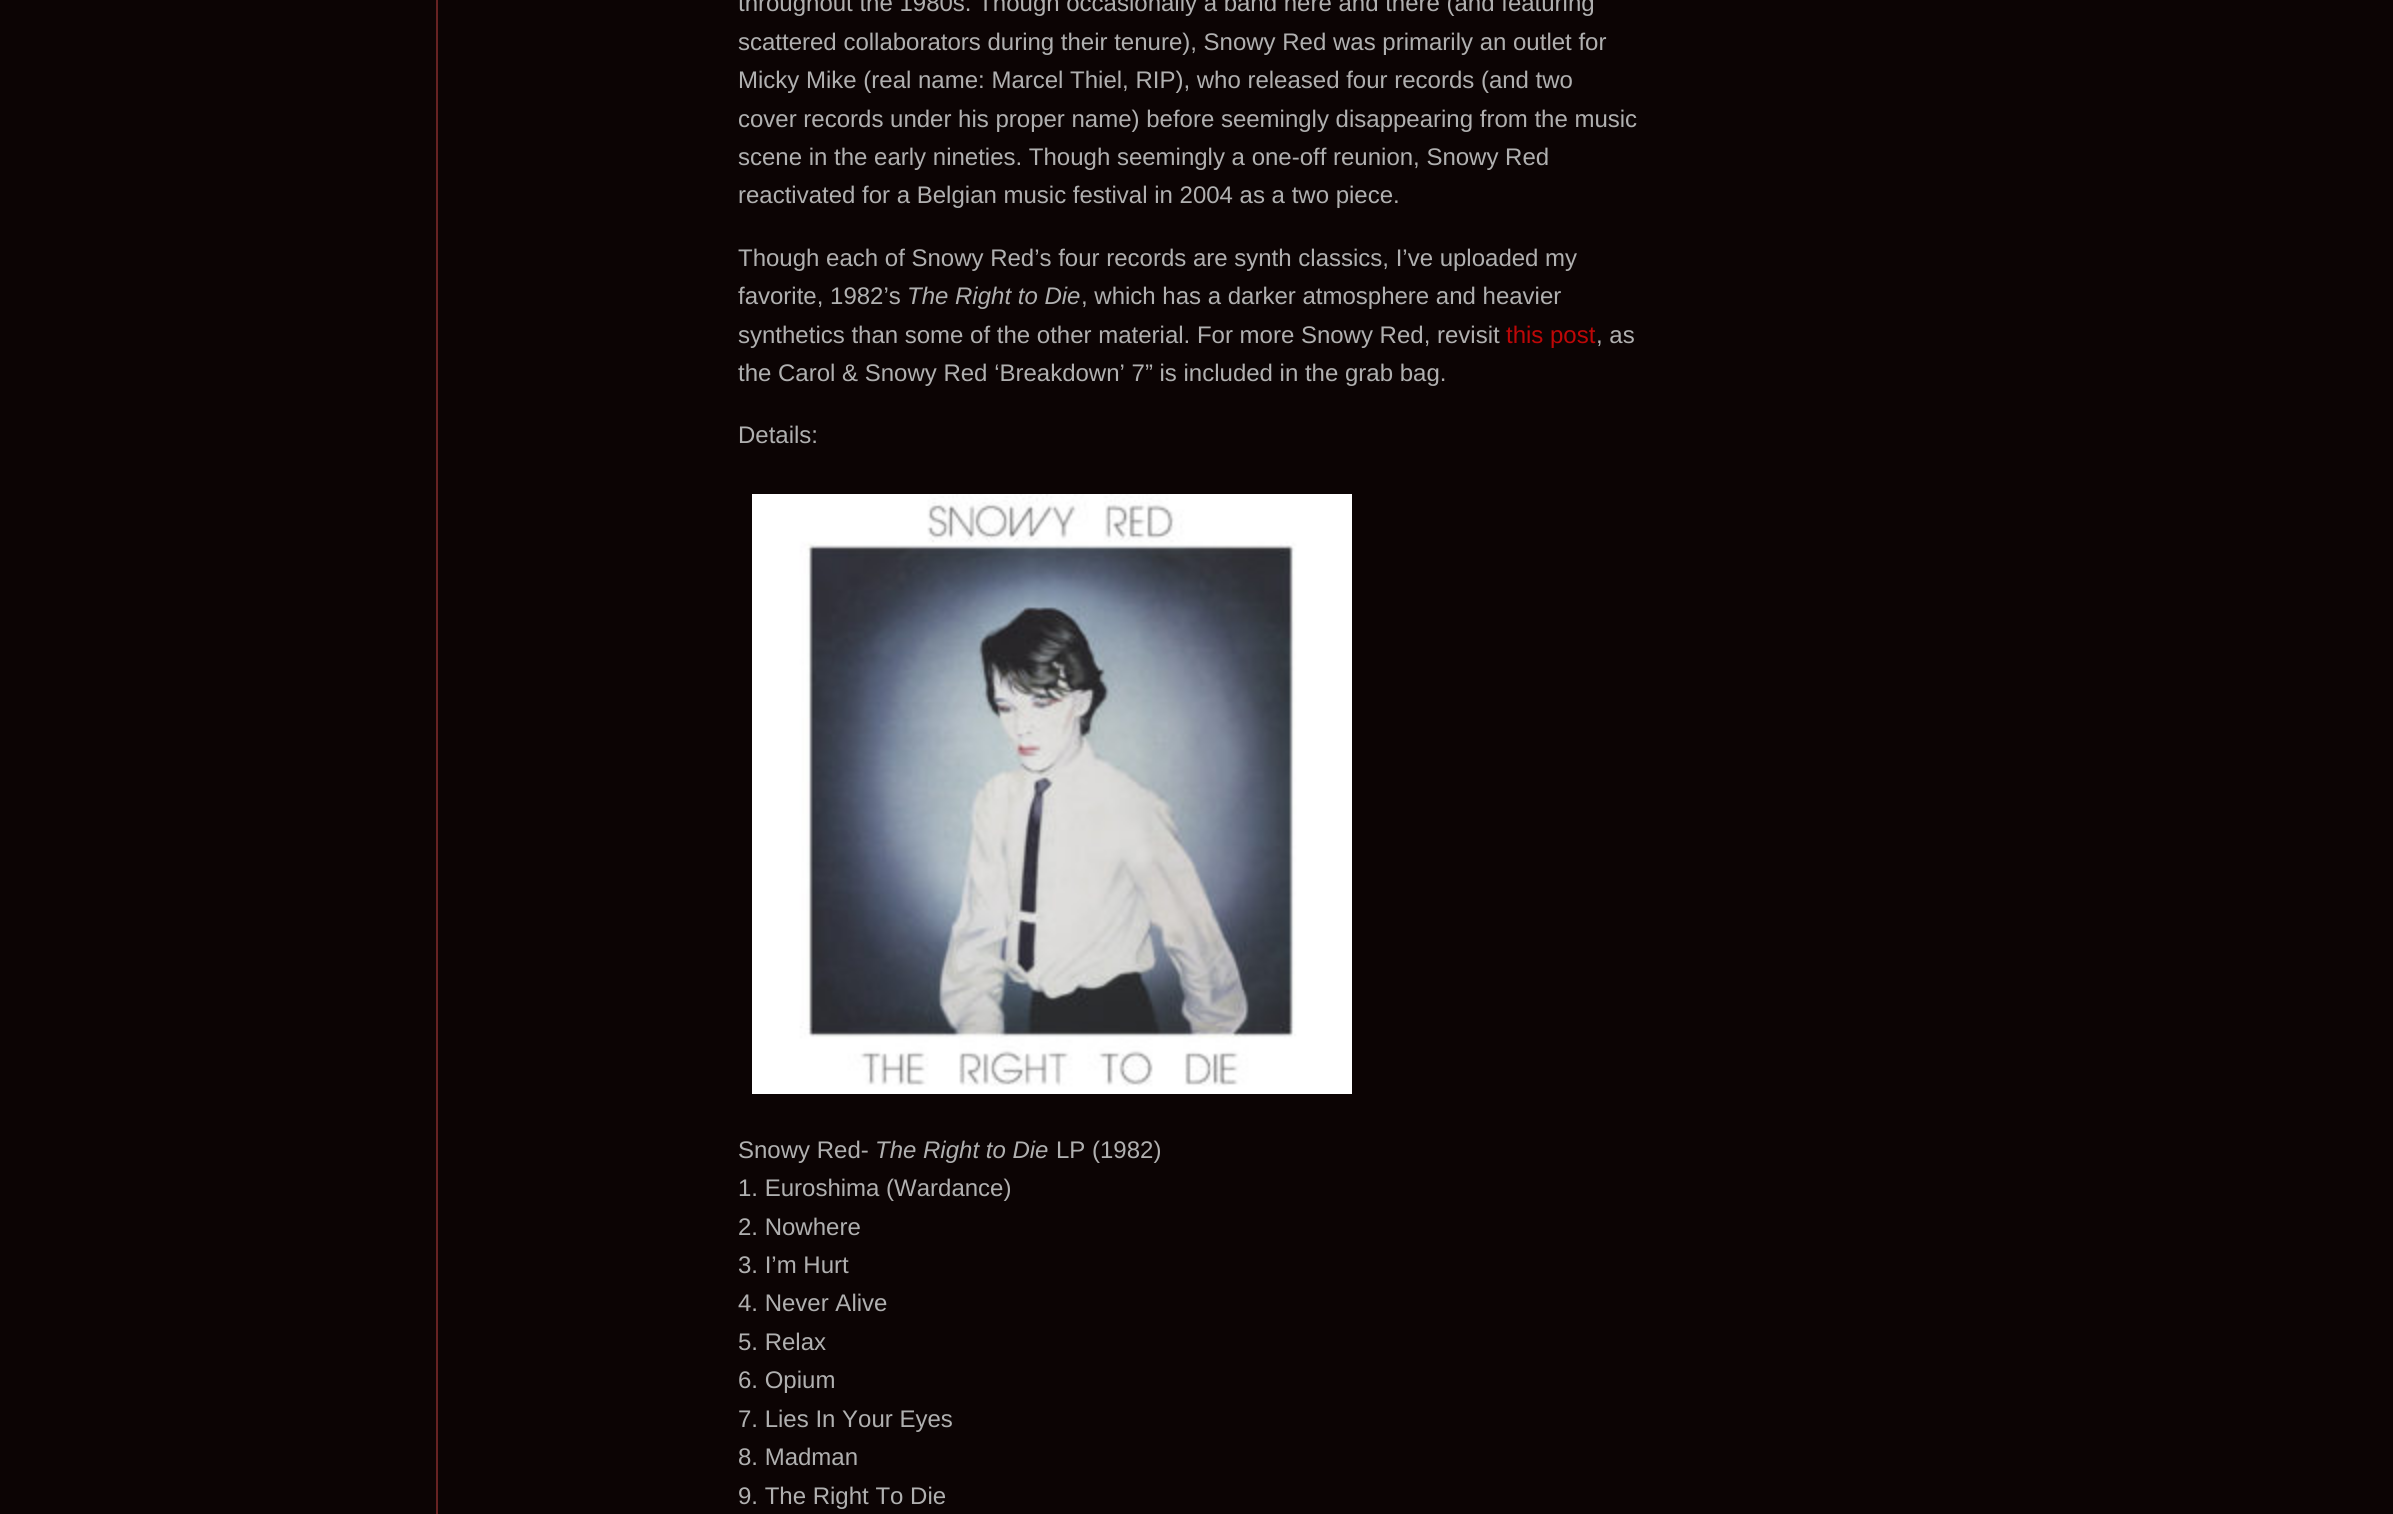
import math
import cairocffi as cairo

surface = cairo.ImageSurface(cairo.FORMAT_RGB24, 2393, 1514)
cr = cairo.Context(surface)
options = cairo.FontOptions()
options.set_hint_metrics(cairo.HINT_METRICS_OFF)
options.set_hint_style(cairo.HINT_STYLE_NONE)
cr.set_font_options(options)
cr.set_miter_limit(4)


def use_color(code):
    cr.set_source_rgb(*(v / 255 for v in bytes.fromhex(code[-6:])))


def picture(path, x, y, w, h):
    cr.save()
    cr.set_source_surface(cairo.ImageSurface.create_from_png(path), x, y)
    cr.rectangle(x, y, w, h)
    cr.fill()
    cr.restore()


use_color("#0c0404")
cr.paint()
use_color("#662222")
cr.rectangle(436, 0, 2, 1514)
cr.fill()
cr.select_font_face("Liberation Sans")
cr.set_font_size(24)
use_color("#b0b0b0")
cr.move_to(738, 11)
cr.show_text("throughout the 1980s. Though occasionally a band here and there (and featuring")
cr.move_to(738, 50)
cr.show_text("scattered collaborators during their tenure), Snowy Red was primarily an outlet for")
cr.move_to(738, 88)
cr.show_text("Micky Mike (real name: Marcel Thiel, RIP), who released four records (and two")
cr.move_to(738, 127)
cr.show_text("cover records under his proper name) before seemingly disappearing from the music")
cr.move_to(738, 165)
cr.show_text("scene in the early nineties. Though seemingly a one-off reunion, Snowy Red")
cr.move_to(738, 203)
cr.show_text("reactivated for a Belgian music festival in 2004 as a two piece.")
cr.move_to(738, 266)
cr.show_text("Though each of Snowy Red’s four records are synth classics, I’ve uploaded my")
cr.move_to(738, 304)
cr.show_text("favorite, 1982’s")
cr.select_font_face("Liberation Sans", cairo.FONT_SLANT_ITALIC)
cr.move_to(907, 304)
cr.show_text("The Right to Die")
cr.select_font_face("Liberation Sans")
cr.move_to(1081, 304)
cr.show_text(", which has a darker atmosphere and heavier")
cr.move_to(738, 343)
cr.show_text("synthetics than some of the other material. For more Snowy Red, revisit")
use_color("#be0707")
cr.move_to(1506, 343)
cr.show_text("this post")
use_color("#b0b0b0")
cr.move_to(1596, 343)
cr.show_text(", as")
cr.move_to(738, 381)
cr.show_text("the Carol & Snowy Red ‘Breakdown’ 7” is included in the grab bag.")
cr.move_to(738, 443)
cr.show_text("Details:")
picture("img1.png", 752, 494, 600, 600)
cr.move_to(738, 1158)
cr.show_text("Snowy Red-")
cr.select_font_face("Liberation Sans", cairo.FONT_SLANT_ITALIC)
cr.move_to(875, 1158)
cr.show_text("The Right to Die")
cr.select_font_face("Liberation Sans")
cr.move_to(1056, 1158)
cr.show_text("LP (1982)")
cr.move_to(738, 1196)
cr.show_text("1. Euroshima (Wardance)")
cr.move_to(738, 1235)
cr.show_text("2. Nowhere")
cr.move_to(738, 1273)
cr.show_text("3. I’m Hurt")
cr.move_to(738, 1311)
cr.show_text("4. Never Alive")
cr.move_to(738, 1350)
cr.show_text("5. Relax")
cr.move_to(738, 1388)
cr.show_text("6. Opium")
cr.move_to(738, 1427)
cr.show_text("7. Lies In Your Eyes")
cr.move_to(738, 1465)
cr.show_text("8. Madman")
cr.move_to(738, 1504)
cr.show_text("9. The Right To Die")
surface.write_to_png("result.png")
